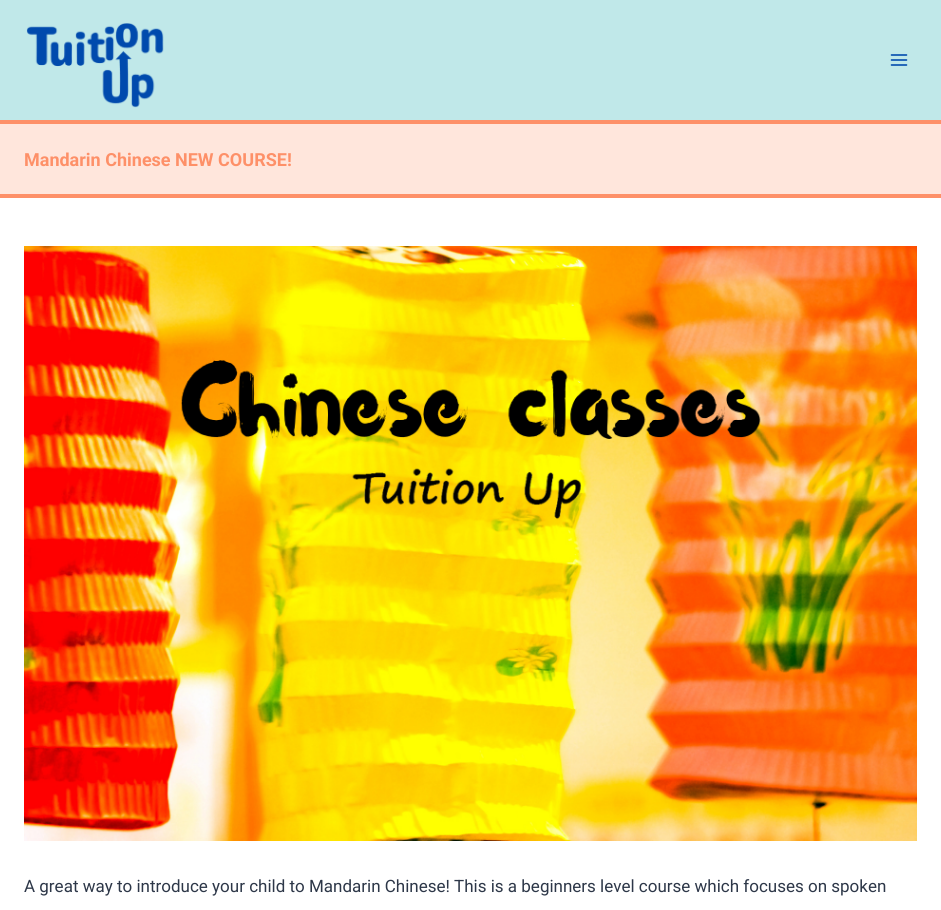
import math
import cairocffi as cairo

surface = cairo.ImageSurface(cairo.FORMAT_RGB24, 941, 910)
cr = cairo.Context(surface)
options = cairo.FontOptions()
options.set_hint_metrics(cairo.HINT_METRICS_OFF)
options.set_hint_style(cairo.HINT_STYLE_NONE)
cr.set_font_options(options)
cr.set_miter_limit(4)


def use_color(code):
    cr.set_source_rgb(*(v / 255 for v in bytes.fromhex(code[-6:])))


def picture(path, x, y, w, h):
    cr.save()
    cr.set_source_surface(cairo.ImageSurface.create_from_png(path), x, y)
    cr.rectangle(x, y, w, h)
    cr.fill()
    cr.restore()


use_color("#ffffff")
cr.paint()
use_color("#c0e8e9")
cr.rectangle(0, 0, 941, 120)
cr.fill()
use_color("#fe9068")
cr.rectangle(0, 120, 941, 4)
cr.fill()
picture("img1.png", 26, 23, 138, 85)
picture("img2.png", 890, 54, 18, 12)
use_color("#ffe6dc")
cr.rectangle(0, 124, 941, 70)
cr.fill()
use_color("#fe9068")
cr.rectangle(0, 194, 941, 4)
cr.fill()
cr.select_font_face("Roboto", cairo.FONT_SLANT_NORMAL, cairo.FONT_WEIGHT_BOLD)
cr.set_font_size(18)
cr.move_to(24, 166)
cr.show_text("Mandarin Chinese NEW COURSE!")
picture("img3.png", 24, 246, 893, 595)
cr.select_font_face("Roboto")
cr.set_font_size(17)
use_color("#2d3748")
cr.move_to(24, 892)
cr.show_text("A great way to introduce your child to Mandarin Chinese! This is a beginners level course which focuses on spoken")
surface.write_to_png("result.png")
